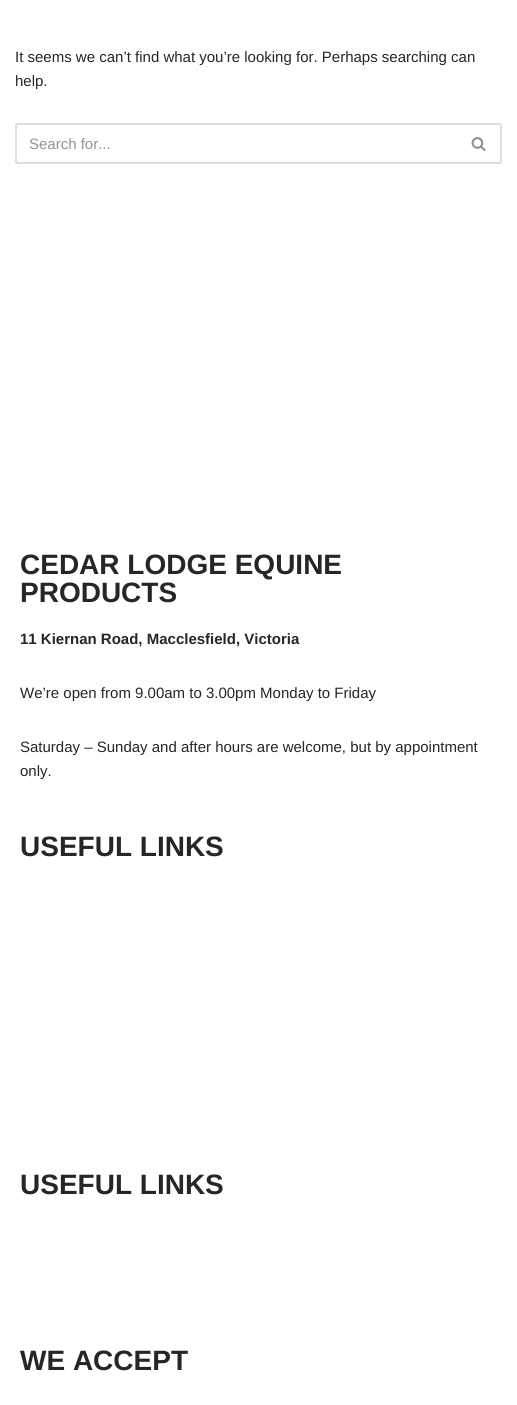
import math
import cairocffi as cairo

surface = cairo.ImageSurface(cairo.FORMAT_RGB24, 517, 1405)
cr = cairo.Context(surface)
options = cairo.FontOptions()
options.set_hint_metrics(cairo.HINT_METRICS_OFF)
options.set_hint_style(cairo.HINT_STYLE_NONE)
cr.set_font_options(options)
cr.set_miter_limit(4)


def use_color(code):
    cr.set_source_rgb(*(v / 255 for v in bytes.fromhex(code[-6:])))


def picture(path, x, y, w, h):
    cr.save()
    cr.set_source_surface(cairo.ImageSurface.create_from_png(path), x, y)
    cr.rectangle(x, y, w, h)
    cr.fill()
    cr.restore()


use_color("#ffffff")
cr.paint()
cr.select_font_face("Liberation Sans")
cr.set_font_size(15)
use_color("#272626")
cr.move_to(15, 62)
cr.show_text("It seems we can’t find what you’re looking for. Perhaps searching can")
cr.move_to(15, 86)
cr.show_text("help.")
use_color("#dddddd")
cr.set_fill_rule(cairo.FILL_RULE_EVEN_ODD)
cr.new_path()
cr.move_to(18, 123)
cr.line_to(457, 123)
cr.line_to(457, 164)
cr.line_to(18, 164)
cr.curve_to(16, 164, 15, 163, 15, 161)
cr.line_to(15, 126)
cr.curve_to(15, 124, 16, 123, 18, 123)
cr.close_path()
cr.move_to(18, 125)
cr.line_to(457, 125)
cr.line_to(457, 162)
cr.line_to(18, 162)
cr.line_to(17, 161)
cr.line_to(17, 126)
cr.close_path()
cr.fill()
use_color("#939393")
cr.move_to(29, 149)
cr.show_text("Search for...")
use_color("#dddddd")
cr.new_path()
cr.move_to(457, 123)
cr.line_to(499, 123)
cr.curve_to(501, 123, 502, 124, 502, 126)
cr.line_to(502, 161)
cr.curve_to(502, 163, 501, 164, 499, 164)
cr.line_to(457, 164)
cr.close_path()
cr.move_to(457, 125)
cr.line_to(499, 125)
cr.curve_to(500, 125, 500, 125, 500, 126)
cr.line_to(500, 161)
cr.curve_to(500, 162, 500, 162, 499, 162)
cr.line_to(457, 162)
cr.close_path()
cr.fill()
picture("img1.png", 471, 137, 15, 14)
cr.select_font_face("Liberation Sans", cairo.FONT_SLANT_NORMAL, cairo.FONT_WEIGHT_BOLD)
cr.set_font_size(28)
use_color("#272626")
cr.move_to(20, 574)
cr.show_text("CEDAR LODGE EQUINE")
cr.move_to(20, 602)
cr.show_text("PRODUCTS")
cr.set_font_size(15)
cr.move_to(20, 644)
cr.show_text("11 Kiernan Road, Macclesfield, Victoria")
cr.select_font_face("Liberation Sans")
cr.move_to(20, 698)
cr.show_text("We’re open from 9.00am to 3.00pm Monday to Friday")
cr.move_to(20, 752)
cr.show_text("Saturday – Sunday and after hours are welcome, but by appointment")
cr.move_to(20, 776)
cr.show_text("only.")
cr.select_font_face("Liberation Sans", cairo.FONT_SLANT_NORMAL, cairo.FONT_WEIGHT_BOLD)
cr.set_font_size(28)
cr.move_to(20, 856)
cr.show_text("USEFUL LINKS")
cr.move_to(20, 1194)
cr.show_text("USEFUL LINKS")
cr.move_to(20, 1370)
cr.show_text("WE ACCEPT")
surface.write_to_png("result.png")
